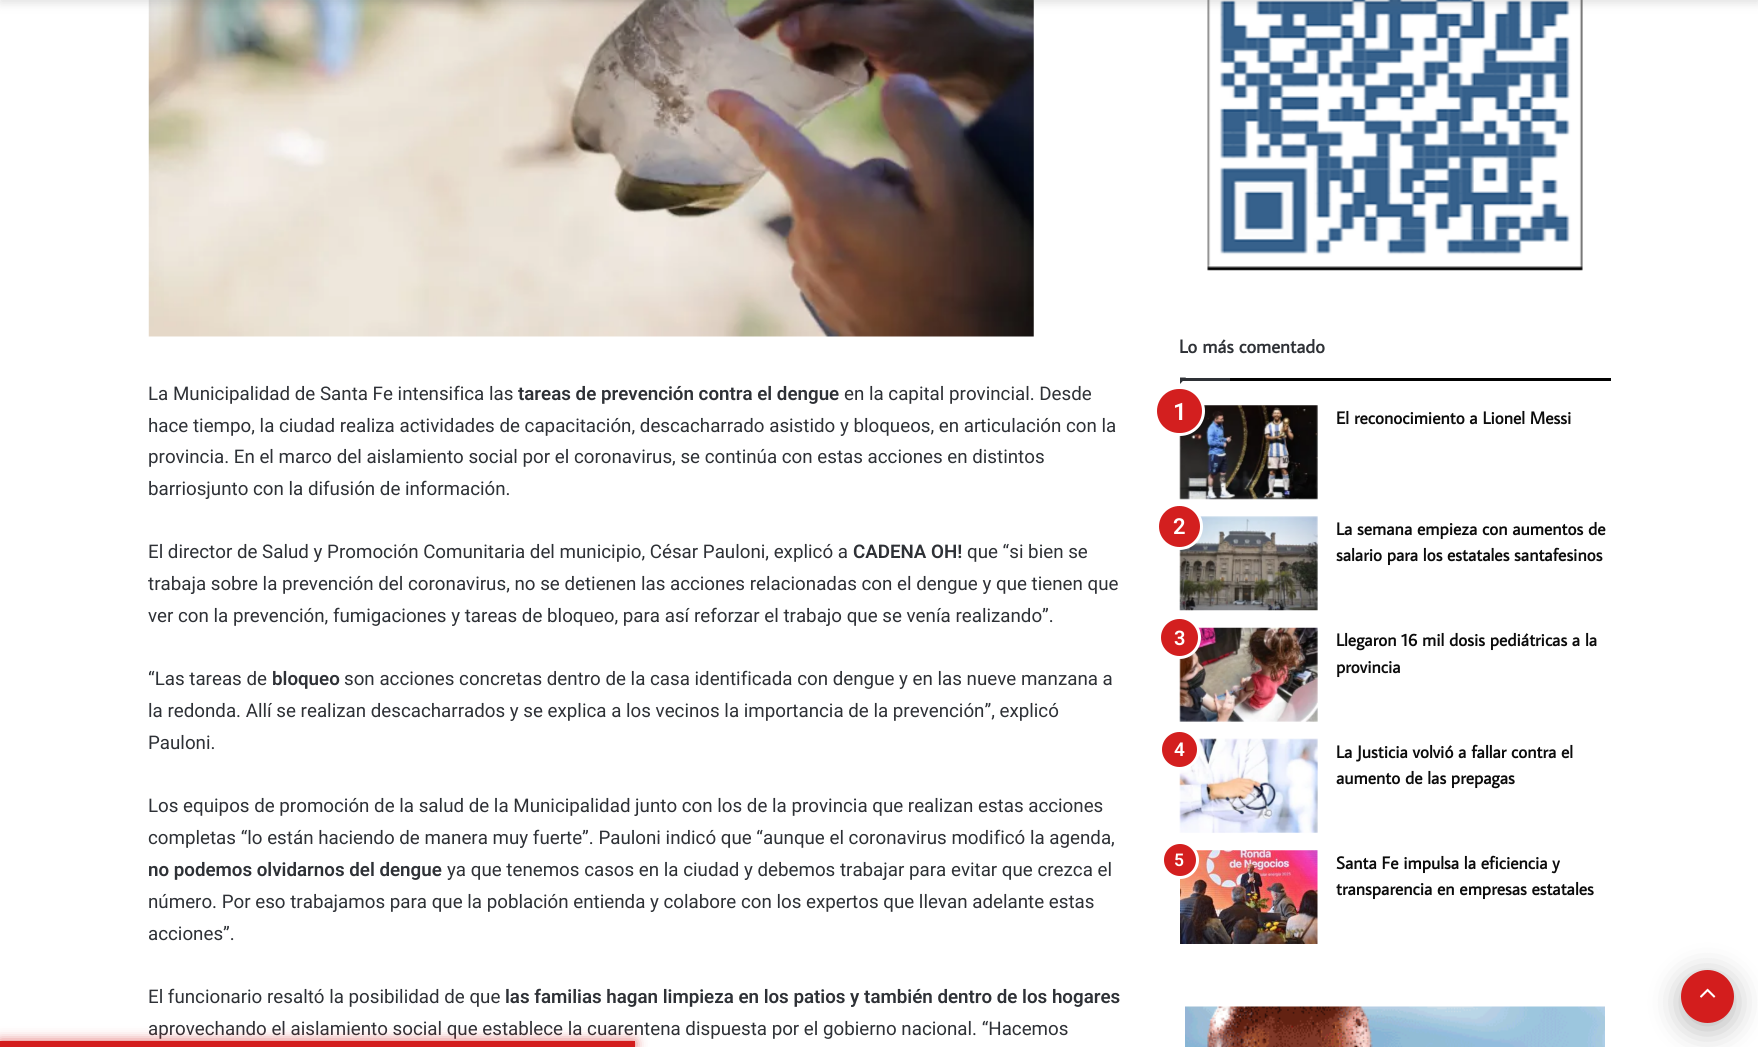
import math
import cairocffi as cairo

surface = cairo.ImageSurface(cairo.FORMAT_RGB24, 1758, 1047)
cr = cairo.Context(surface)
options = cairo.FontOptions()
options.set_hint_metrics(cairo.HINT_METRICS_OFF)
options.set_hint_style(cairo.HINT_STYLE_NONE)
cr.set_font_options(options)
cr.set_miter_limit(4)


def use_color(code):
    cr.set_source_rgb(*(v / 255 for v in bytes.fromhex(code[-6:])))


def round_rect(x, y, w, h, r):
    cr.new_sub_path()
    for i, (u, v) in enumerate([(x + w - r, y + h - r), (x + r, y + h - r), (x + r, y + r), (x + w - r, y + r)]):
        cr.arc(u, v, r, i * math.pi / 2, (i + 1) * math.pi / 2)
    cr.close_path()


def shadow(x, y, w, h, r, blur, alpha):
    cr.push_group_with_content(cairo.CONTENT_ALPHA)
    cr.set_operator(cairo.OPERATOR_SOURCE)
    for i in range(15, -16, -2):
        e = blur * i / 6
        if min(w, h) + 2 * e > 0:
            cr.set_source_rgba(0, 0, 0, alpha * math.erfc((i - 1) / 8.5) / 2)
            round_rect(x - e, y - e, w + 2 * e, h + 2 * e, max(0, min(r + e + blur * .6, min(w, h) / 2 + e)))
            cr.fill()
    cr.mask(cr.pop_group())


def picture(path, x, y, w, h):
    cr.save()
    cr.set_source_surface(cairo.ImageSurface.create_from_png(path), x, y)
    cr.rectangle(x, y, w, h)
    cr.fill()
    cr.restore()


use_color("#ffffff")
cr.paint()
picture("img1.png", 148, 0, 886, 337)
picture("img2.png", 1207, 0, 376, 271)
use_color("#636363")
shadow(0, -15, 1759, 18, 0, 5, 0.2)
cr.select_font_face("Roboto")
cr.set_font_size(18.75)
use_color("#2e3136")
cr.move_to(148, 400)
cr.show_text("La Municipalidad de Santa Fe intensifica las")
cr.select_font_face("Roboto SemiBold")
cr.move_to(518, 400)
cr.show_text("tareas de prevención contra el dengue")
cr.select_font_face("Roboto")
cr.move_to(844, 400)
cr.show_text("en la capital provincial. Desde")
cr.move_to(148, 432)
cr.show_text("hace tiempo, la ciudad realiza actividades de capacitación, descacharrado asistido y bloqueos, en articulación con la")
cr.move_to(148, 463)
cr.show_text("provincia. En el marco del aislamiento social por el coronavirus, se continúa con estas acciones en distintos")
cr.move_to(148, 495)
cr.show_text("barriosjunto con la difusión de información.")
cr.move_to(148, 558)
cr.show_text("El director de Salud y Promoción Comunitaria del municipio, César Pauloni, explicó a")
cr.select_font_face("Roboto SemiBold")
cr.move_to(853, 558)
cr.show_text("CADENA OH!")
cr.select_font_face("Roboto")
cr.move_to(967, 558)
cr.show_text("que “si bien se")
cr.move_to(148, 590)
cr.show_text("trabaja sobre la prevención del coronavirus, no se detienen las acciones relacionadas con el dengue y que tienen que")
cr.move_to(148, 622)
cr.show_text("ver con la prevención, fumigaciones y tareas de bloqueo, para así reforzar el trabajo que se venía realizando”.")
cr.move_to(148, 685)
cr.show_text("“Las tareas de")
cr.select_font_face("Roboto SemiBold")
cr.move_to(272, 685)
cr.show_text("bloqueo")
cr.select_font_face("Roboto")
cr.move_to(344, 685)
cr.show_text("son acciones concretas dentro de la casa identificada con dengue y en las nueve manzana a")
cr.move_to(148, 717)
cr.show_text("la redonda. Allí se realizan descacharrados y se explica a los vecinos la importancia de la prevención”, explicó")
cr.move_to(148, 749)
cr.show_text("Pauloni.")
cr.move_to(148, 812)
cr.show_text("Los equipos de promoción de la salud de la Municipalidad junto con los de la provincia que realizan estas acciones")
cr.move_to(148, 844)
cr.show_text("completas “lo están haciendo de manera muy fuerte”. Pauloni indicó que “aunque el coronavirus modificó la agenda,")
cr.select_font_face("Roboto SemiBold")
cr.move_to(148, 876)
cr.show_text("no podemos olvidarnos del dengue")
cr.select_font_face("Roboto")
cr.move_to(447, 876)
cr.show_text("ya que tenemos casos en la ciudad y debemos trabajar para evitar que crezca el")
cr.move_to(148, 908)
cr.show_text("número. Por eso trabajamos para que la población entienda y colabore con los expertos que llevan adelante estas")
cr.move_to(148, 940)
cr.show_text("acciones”.")
cr.move_to(148, 1003)
cr.show_text("El funcionario resaltó la posibilidad de que")
cr.select_font_face("Roboto SemiBold")
cr.move_to(505, 1003)
cr.show_text("las familias hagan limpieza en los patios y también dentro de los hogares")
cr.select_font_face("Roboto")
cr.move_to(148, 1035)
cr.show_text("aprovechando el aislamiento social que establece la cuarentena dispuesta por el gobierno nacional. “Hacemos")
use_color("#030303")
cr.rectangle(1230, 378, 381, 3)
cr.fill()
cr.select_font_face("Average Sans", cairo.FONT_SLANT_NORMAL, cairo.FONT_WEIGHT_BOLD)
use_color("#2e3136")
cr.move_to(1179, 353)
cr.show_text("Lo más comentado")
cr.new_path()
cr.move_to(1180, 377.5)
cr.line_to(1186, 377.5)
cr.line_to(1180, 384)
cr.close_path()
cr.fill()
cr.rectangle(1180, 378, 50, 3)
cr.fill()
picture("img3.png", 1179, 405, 139, 95)
use_color("#d31f1f")
round_rect(1155.5, 387.5, 48, 47, 23.5)
cr.fill_preserve()
use_color("#ffffff")
cr.set_line_width(3)
cr.stroke()
cr.select_font_face("Roboto SemiBold")
cr.set_font_size(24)
cr.move_to(1173, 420)
cr.show_text("1")
cr.select_font_face("Average Sans", cairo.FONT_SLANT_NORMAL, cairo.FONT_WEIGHT_BOLD)
cr.set_font_size(17.5)
use_color("#0c0c0c")
cr.move_to(1336, 424)
cr.show_text("El reconocimiento a Lionel Messi")
picture("img4.png", 1179, 516, 139, 95)
use_color("#d31f1f")
cr.arc(1179.5, 526.5, 22, 0, 2 * math.pi)
cr.fill_preserve()
use_color("#ffffff")
cr.stroke()
cr.select_font_face("Roboto SemiBold")
cr.set_font_size(22)
cr.move_to(1173, 534)
cr.show_text("2")
cr.select_font_face("Average Sans", cairo.FONT_SLANT_NORMAL, cairo.FONT_WEIGHT_BOLD)
cr.set_font_size(17.5)
use_color("#0c0c0c")
cr.move_to(1336, 535)
cr.show_text("La semana empieza con aumentos de")
cr.move_to(1336, 561)
cr.show_text("salario para los estatales santafesinos")
picture("img5.png", 1179, 627, 139, 95)
use_color("#d31f1f")
cr.arc(1179.5, 637.5, 20, 0, 2 * math.pi)
cr.fill_preserve()
use_color("#ffffff")
cr.stroke()
cr.select_font_face("Roboto SemiBold")
cr.set_font_size(20)
cr.move_to(1174, 645)
cr.show_text("3")
cr.select_font_face("Average Sans", cairo.FONT_SLANT_NORMAL, cairo.FONT_WEIGHT_BOLD)
cr.set_font_size(17.5)
use_color("#0c0c0c")
cr.move_to(1336, 646)
cr.show_text("Llegaron 16 mil dosis pediátricas a la")
cr.move_to(1336, 673)
cr.show_text("provincia")
picture("img6.png", 1179, 738, 139, 95)
use_color("#d31f1f")
cr.arc(1179.5, 749.5, 19, 0, 2 * math.pi)
cr.fill_preserve()
use_color("#ffffff")
cr.stroke()
cr.select_font_face("Roboto SemiBold")
cr.set_font_size(19)
cr.move_to(1174, 756)
cr.show_text("4")
cr.select_font_face("Average Sans", cairo.FONT_SLANT_NORMAL, cairo.FONT_WEIGHT_BOLD)
cr.set_font_size(17.5)
use_color("#0c0c0c")
cr.move_to(1336, 758)
cr.show_text("La Justicia volvió a fallar contra el")
cr.move_to(1336, 784)
cr.show_text("aumento de las prepagas")
picture("img7.png", 1180, 850, 138, 94)
use_color("#d31f1f")
cr.arc(1180, 860, 17.5, 0, 2 * math.pi)
cr.fill_preserve()
use_color("#ffffff")
cr.stroke()
cr.select_font_face("Roboto SemiBold")
cr.move_to(1174, 866)
cr.show_text("5")
cr.select_font_face("Average Sans", cairo.FONT_SLANT_NORMAL, cairo.FONT_WEIGHT_BOLD)
use_color("#0c0c0c")
cr.move_to(1336, 869)
cr.show_text("Santa Fe impulsa la eficiencia y")
cr.move_to(1336, 895)
cr.show_text("transparencia en empresas estatales")
picture("img8.png", 1185, 1006, 420, 41)
use_color("#000000")
shadow(1681, 976, 53, 53, 26.5, 15.5, 0.3)
use_color("#d31d1d")
cr.arc(1707.5, 996.5, 26.5, 0, 2 * math.pi)
cr.fill()
picture("img9.png", 1700, 988, 16, 10)
use_color("#d31d1d")
shadow(0, 1041, 635, 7, 0, 6, 0.7)
use_color("#d31d1d")
cr.rectangle(0, 1041, 635, 6)
cr.fill()
surface.write_to_png("result.png")
